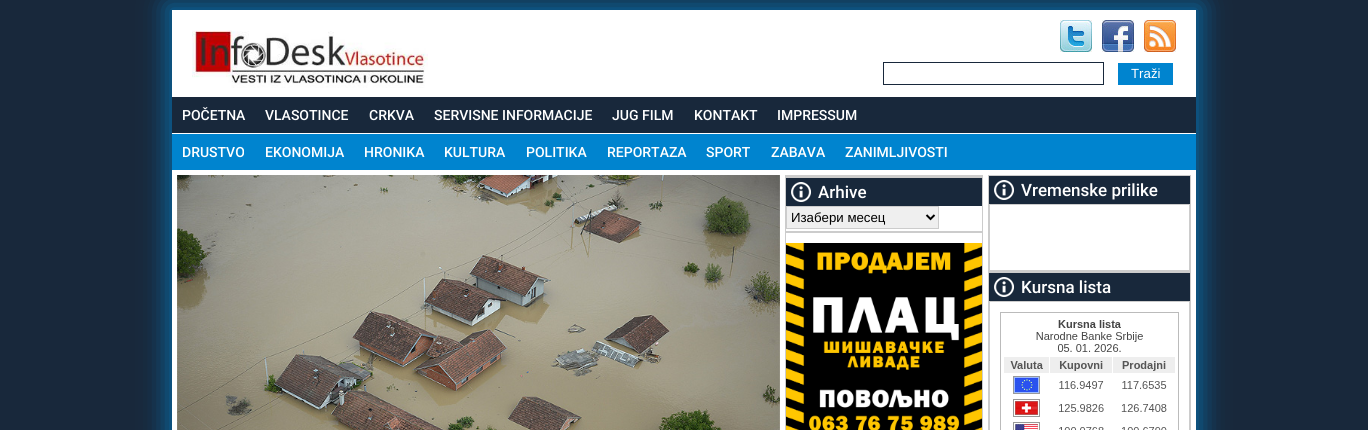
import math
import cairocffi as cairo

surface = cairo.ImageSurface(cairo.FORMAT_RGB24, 1368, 430)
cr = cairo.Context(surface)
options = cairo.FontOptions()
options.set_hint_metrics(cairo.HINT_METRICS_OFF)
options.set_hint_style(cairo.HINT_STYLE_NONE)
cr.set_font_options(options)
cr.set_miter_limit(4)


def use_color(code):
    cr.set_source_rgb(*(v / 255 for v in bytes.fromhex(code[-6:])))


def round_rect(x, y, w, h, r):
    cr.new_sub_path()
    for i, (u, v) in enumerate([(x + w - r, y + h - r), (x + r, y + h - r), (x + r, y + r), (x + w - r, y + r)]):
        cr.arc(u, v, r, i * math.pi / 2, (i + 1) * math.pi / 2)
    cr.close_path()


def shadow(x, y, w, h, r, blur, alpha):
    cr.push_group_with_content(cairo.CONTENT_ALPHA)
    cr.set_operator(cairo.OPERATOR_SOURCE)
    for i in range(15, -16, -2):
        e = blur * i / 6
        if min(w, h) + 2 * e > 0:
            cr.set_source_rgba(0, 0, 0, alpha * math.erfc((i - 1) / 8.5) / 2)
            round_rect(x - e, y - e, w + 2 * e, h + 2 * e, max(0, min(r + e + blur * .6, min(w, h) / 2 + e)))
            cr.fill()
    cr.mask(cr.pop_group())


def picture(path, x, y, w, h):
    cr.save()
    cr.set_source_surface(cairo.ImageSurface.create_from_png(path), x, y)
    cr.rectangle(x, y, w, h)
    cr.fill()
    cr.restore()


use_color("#18283b")
cr.paint()
use_color("#0084cf")
shadow(167, 5, 1034, 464, 0, 13, 0.71)
use_color("#ffffff")
cr.rectangle(172, 10, 1024, 420)
cr.fill()
picture("img1.png", 192, 30, 236, 58)
picture("img2.png", 1060, 20, 32, 32)
picture("img3.png", 1102, 20, 32, 32)
picture("img4.png", 1144, 20, 32, 32)
cr.rectangle(883.5, 62.5, 220, 22)
use_color("#18283b")
cr.set_line_width(1)
cr.stroke()
use_color("#0084cf")
cr.rectangle(1118, 63, 55, 22)
cr.fill()
cr.select_font_face("Liberation Sans")
cr.set_font_size(13.25)
use_color("#ffffff")
cr.move_to(1131, 78)
cr.show_text("Traži")
use_color("#18283b")
cr.rectangle(172, 97, 1024, 36)
cr.fill()
cr.select_font_face("Roboto Medium")
cr.set_font_size(14)
use_color("#ffffff")
cr.move_to(182, 120)
cr.show_text("POČETNA")
cr.move_to(265, 120)
cr.show_text("VLASOTINCE")
cr.move_to(369, 120)
cr.show_text("CRKVA")
cr.move_to(434, 120)
cr.show_text("SERVISNE INFORMACIJE")
cr.move_to(612, 120)
cr.show_text("JUG FILM")
cr.move_to(694, 120)
cr.show_text("KONTAKT")
cr.move_to(777, 120)
cr.show_text("IMPRESSUM")
use_color("#0084cf")
cr.rectangle(172, 134, 1024, 36)
cr.fill()
use_color("#ffffff")
cr.move_to(182, 157)
cr.show_text("DRUSTVO")
cr.move_to(265, 157)
cr.show_text("EKONOMIJA")
cr.move_to(364, 157)
cr.show_text("HRONIKA")
cr.move_to(444, 157)
cr.show_text("KULTURA")
cr.move_to(526, 157)
cr.show_text("POLITIKA")
cr.move_to(607, 157)
cr.show_text("REPORTAZA")
cr.move_to(706, 157)
cr.show_text("SPORT")
cr.move_to(771, 157)
cr.show_text("ZABAVA")
cr.move_to(845, 157)
cr.show_text("ZANIMLJIVOSTI")
picture("img5.png", 177, 175, 603, 255)
use_color("#cccccc")
cr.rectangle(785, 175, 198, 2)
cr.fill()
cr.rectangle(785.5, 177.5, 197, 54)
cr.stroke()
use_color("#18283b")
cr.rectangle(786, 178, 196, 28)
cr.fill()
picture("img6.png", 791, 182, 20, 20)
cr.set_font_size(17)
use_color("#ffffff")
cr.move_to(818, 198)
cr.show_text("Arhive")
use_color("#efefef")
cr.rectangle(786.5, 206.5, 152, 22)
cr.fill_preserve()
use_color("#cccccc")
cr.stroke()
cr.new_path()
cr.move_to(926.5, 215)
cr.line_to(930.5, 219)
cr.line_to(934.5, 215)
use_color("#000000")
cr.set_line_width(2)
cr.stroke()
cr.select_font_face("Liberation Sans")
cr.set_font_size(13.25)
cr.move_to(791, 222)
cr.show_text("Изабери месец")
cr.rectangle(785.5, 232.5, 197, 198)
use_color("#cccccc")
cr.set_line_width(1)
cr.stroke()
picture("img7.png", 786, 243, 196, 187)
cr.rectangle(988.5, 175.5, 202, 96)
cr.stroke()
use_color("#18283b")
cr.rectangle(989, 176, 201, 28)
cr.fill()
picture("img6.png", 994, 180, 20, 20)
cr.select_font_face("Roboto Medium")
cr.set_font_size(17)
use_color("#ffffff")
cr.move_to(1021, 196)
cr.show_text("Vremenske prilike")
cr.rectangle(989.5, 204.5, 200, 66)
use_color("#cccccc")
cr.stroke()
cr.rectangle(988.5, 272.5, 202, 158)
cr.stroke()
use_color("#18283b")
cr.rectangle(989, 273, 201, 28)
cr.fill()
picture("img6.png", 994, 277, 20, 20)
use_color("#ffffff")
cr.move_to(1021, 293)
cr.show_text("Kursna lista")
cr.rectangle(989.5, 301.5, 200, 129)
use_color("#cccccc")
cr.stroke()
picture("img8.png", 1000, 312, 179, 118)
surface.write_to_png("result.png")
